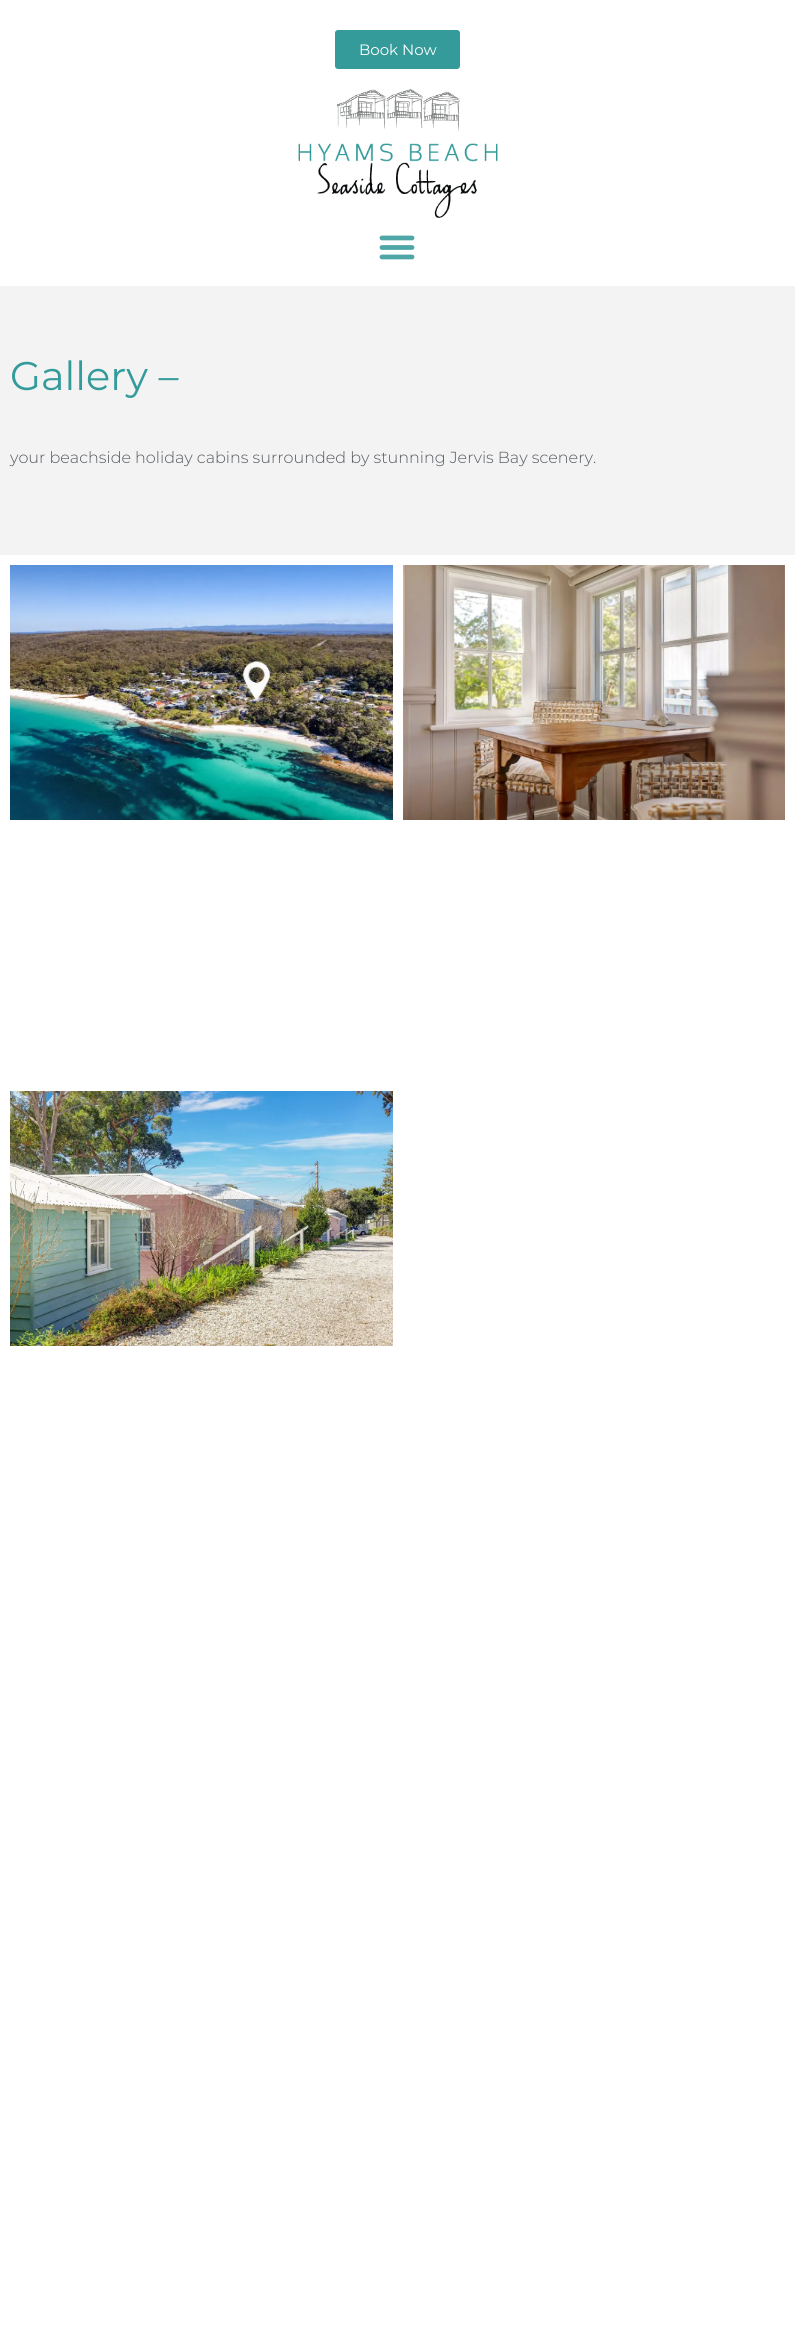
import math
import cairocffi as cairo

surface = cairo.ImageSurface(cairo.FORMAT_RGB24, 795, 2325)
cr = cairo.Context(surface)
options = cairo.FontOptions()
options.set_hint_metrics(cairo.HINT_METRICS_OFF)
options.set_hint_style(cairo.HINT_STYLE_NONE)
cr.set_font_options(options)
cr.set_miter_limit(4)


def use_color(code):
    cr.set_source_rgb(*(v / 255 for v in bytes.fromhex(code[-6:])))


def round_rect(x, y, w, h, r):
    cr.new_sub_path()
    for i, (u, v) in enumerate([(x + w - r, y + h - r), (x + r, y + h - r), (x + r, y + r), (x + w - r, y + r)]):
        cr.arc(u, v, r, i * math.pi / 2, (i + 1) * math.pi / 2)
    cr.close_path()


def picture(path, x, y, w, h):
    cr.save()
    cr.set_source_surface(cairo.ImageSurface.create_from_png(path), x, y)
    cr.rectangle(x, y, w, h)
    cr.fill()
    cr.restore()


use_color("#ffffff")
cr.paint()
use_color("#349a9a")
round_rect(335, 30, 125, 39, 3)
cr.fill()
cr.select_font_face("Montserrat")
cr.set_font_size(15)
use_color("#ffffff")
cr.move_to(359, 55)
cr.show_text("Book Now")
picture("img1.png", 298, 89, 200, 129)
picture("img2.png", 379, 235, 36, 25)
use_color("#f3f3f3")
cr.rectangle(0, 286, 795, 269)
cr.fill()
cr.set_font_size(40)
use_color("#349a9a")
cr.move_to(10, 390)
cr.show_text("Gallery –")
cr.select_font_face("Montserrat Light")
cr.set_font_size(16)
use_color("#54595f")
cr.move_to(10, 463)
cr.show_text("your beachside holiday cabins surrounded by stunning Jervis Bay scenery.")
picture("img3.png", 10, 565, 383, 255)
picture("img4.png", 403, 565, 382, 255)
picture("img5.png", 10, 1091, 383, 255)
surface.write_to_png("result.png")
